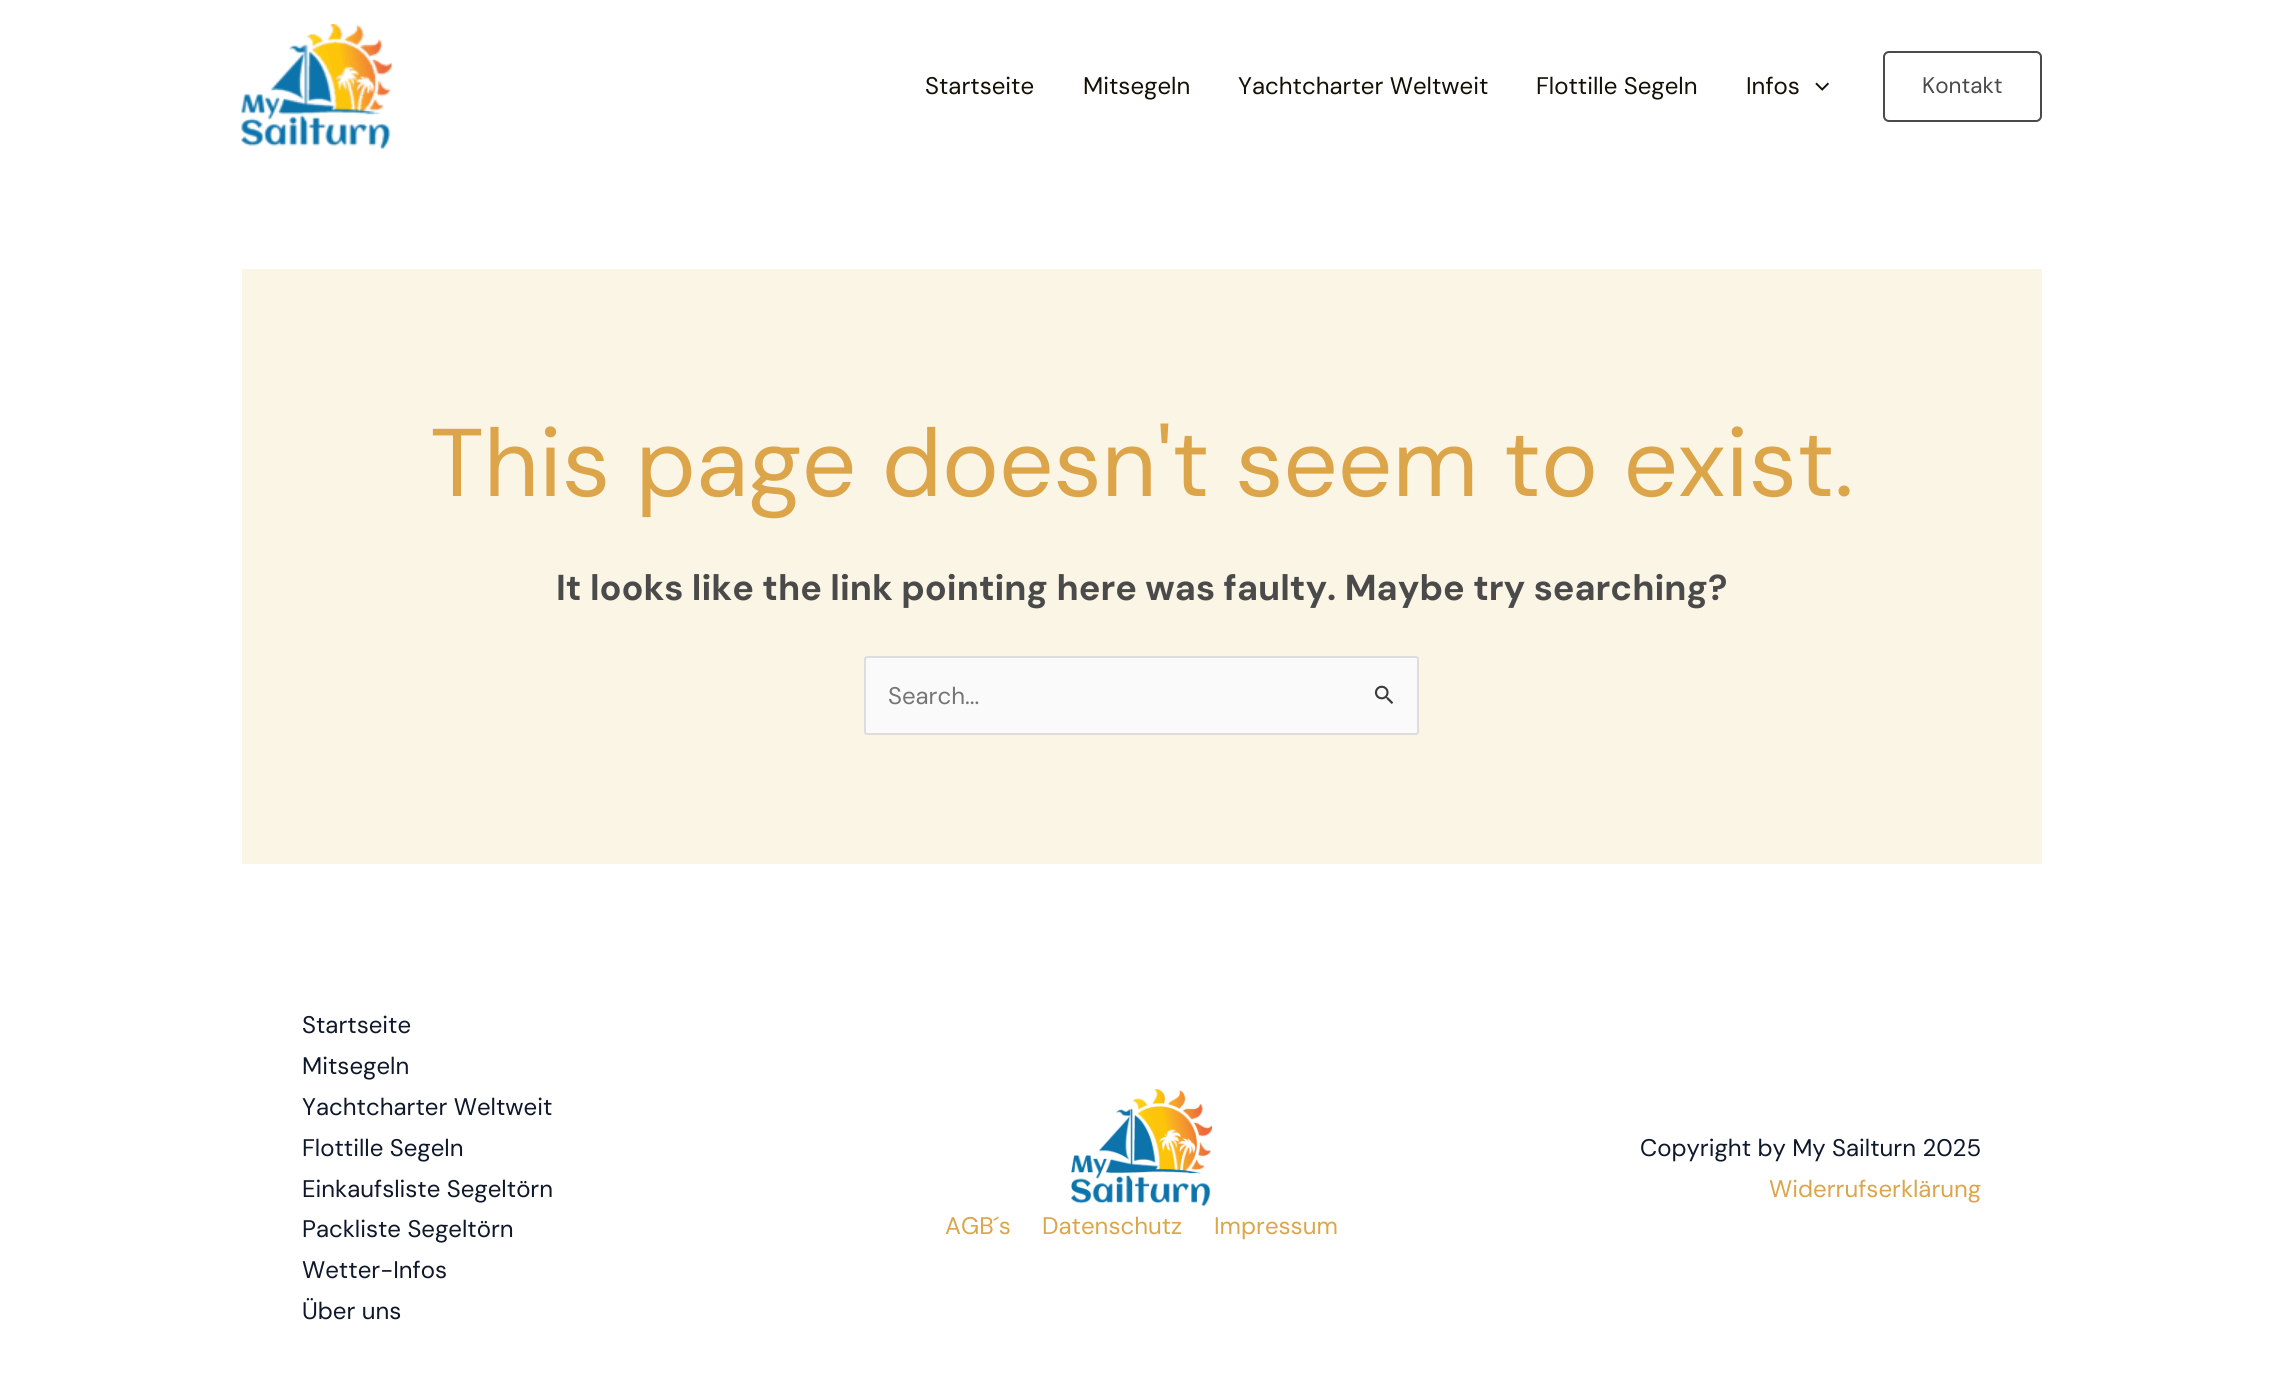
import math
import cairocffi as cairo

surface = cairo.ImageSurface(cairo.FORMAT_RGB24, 2283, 1374)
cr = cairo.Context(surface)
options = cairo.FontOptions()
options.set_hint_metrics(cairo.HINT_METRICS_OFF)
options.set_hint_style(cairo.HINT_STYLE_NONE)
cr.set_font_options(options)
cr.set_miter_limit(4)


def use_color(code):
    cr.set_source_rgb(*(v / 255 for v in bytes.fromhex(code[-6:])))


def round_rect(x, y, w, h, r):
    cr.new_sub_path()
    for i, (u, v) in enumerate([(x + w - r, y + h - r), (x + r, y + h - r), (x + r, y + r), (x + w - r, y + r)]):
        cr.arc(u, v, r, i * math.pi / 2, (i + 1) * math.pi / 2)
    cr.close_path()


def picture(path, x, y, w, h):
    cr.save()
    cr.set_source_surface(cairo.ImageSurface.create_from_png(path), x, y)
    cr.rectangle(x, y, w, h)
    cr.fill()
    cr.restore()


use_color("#ffffff")
cr.paint()
picture("img1.png", 241, 24, 151, 125)
cr.select_font_face("DM Sans")
cr.set_font_size(24)
use_color("#141004")
cr.move_to(925, 94)
cr.show_text("Startseite")
cr.move_to(1083, 94)
cr.show_text("Mitsegeln")
cr.move_to(1238, 94)
cr.show_text("Yachtcharter Weltweit")
cr.move_to(1536, 94)
cr.show_text("Flottille Segeln")
cr.move_to(1746, 94)
cr.show_text("Infos")
picture("img2.png", 1815, 82, 14, 9)
round_rect(1884, 52, 157, 69, 5)
use_color("#4a4a4a")
cr.stroke()
cr.set_font_size(22.5)
cr.move_to(1922, 93)
cr.show_text("Kontakt")
use_color("#faf5e5")
cr.rectangle(242, 269, 1800, 595)
cr.fill()
cr.set_font_size(96)
use_color("#dca54a")
cr.move_to(430, 496)
cr.show_text("This page doesn't seem to exist.")
cr.select_font_face("DM Sans", cairo.FONT_SLANT_NORMAL, cairo.FONT_WEIGHT_BOLD)
cr.set_font_size(36)
use_color("#4a4a4a")
cr.move_to(556, 600)
cr.show_text("It looks like the link pointing here was faulty. Maybe try searching?")
use_color("#fafafa")
round_rect(865, 657, 553, 77, 2)
cr.fill_preserve()
use_color("#dddddd")
cr.stroke()
cr.select_font_face("DM Sans")
cr.set_font_size(24)
use_color("#757575")
cr.move_to(888, 704)
cr.show_text("Search...")
picture("img3.png", 1374, 685, 20, 19)
use_color("#0f172a")
cr.move_to(302, 1033)
cr.show_text("Startseite")
cr.move_to(302, 1074)
cr.show_text("Mitsegeln")
cr.move_to(302, 1115)
cr.show_text("Yachtcharter Weltweit")
cr.move_to(302, 1156)
cr.show_text("Flottille Segeln")
cr.move_to(302, 1197)
cr.show_text("Einkaufsliste Segeltörn")
cr.move_to(302, 1237)
cr.show_text("Packliste Segeltörn")
cr.move_to(302, 1278)
cr.show_text("Wetter-Infos")
cr.move_to(302, 1319)
cr.show_text("Über uns")
cr.move_to(1640, 1156)
cr.show_text("Copyright by My Sailturn 2025")
use_color("#dca54a")
cr.move_to(1769, 1197)
cr.show_text("Widerrufserklärung")
picture("img4.png", 1071, 1089, 141, 117)
cr.move_to(945, 1234)
cr.show_text("AGB´s")
cr.move_to(1042, 1234)
cr.show_text("Datenschutz")
cr.move_to(1214, 1234)
cr.show_text("Impressum")
surface.write_to_png("result.png")
